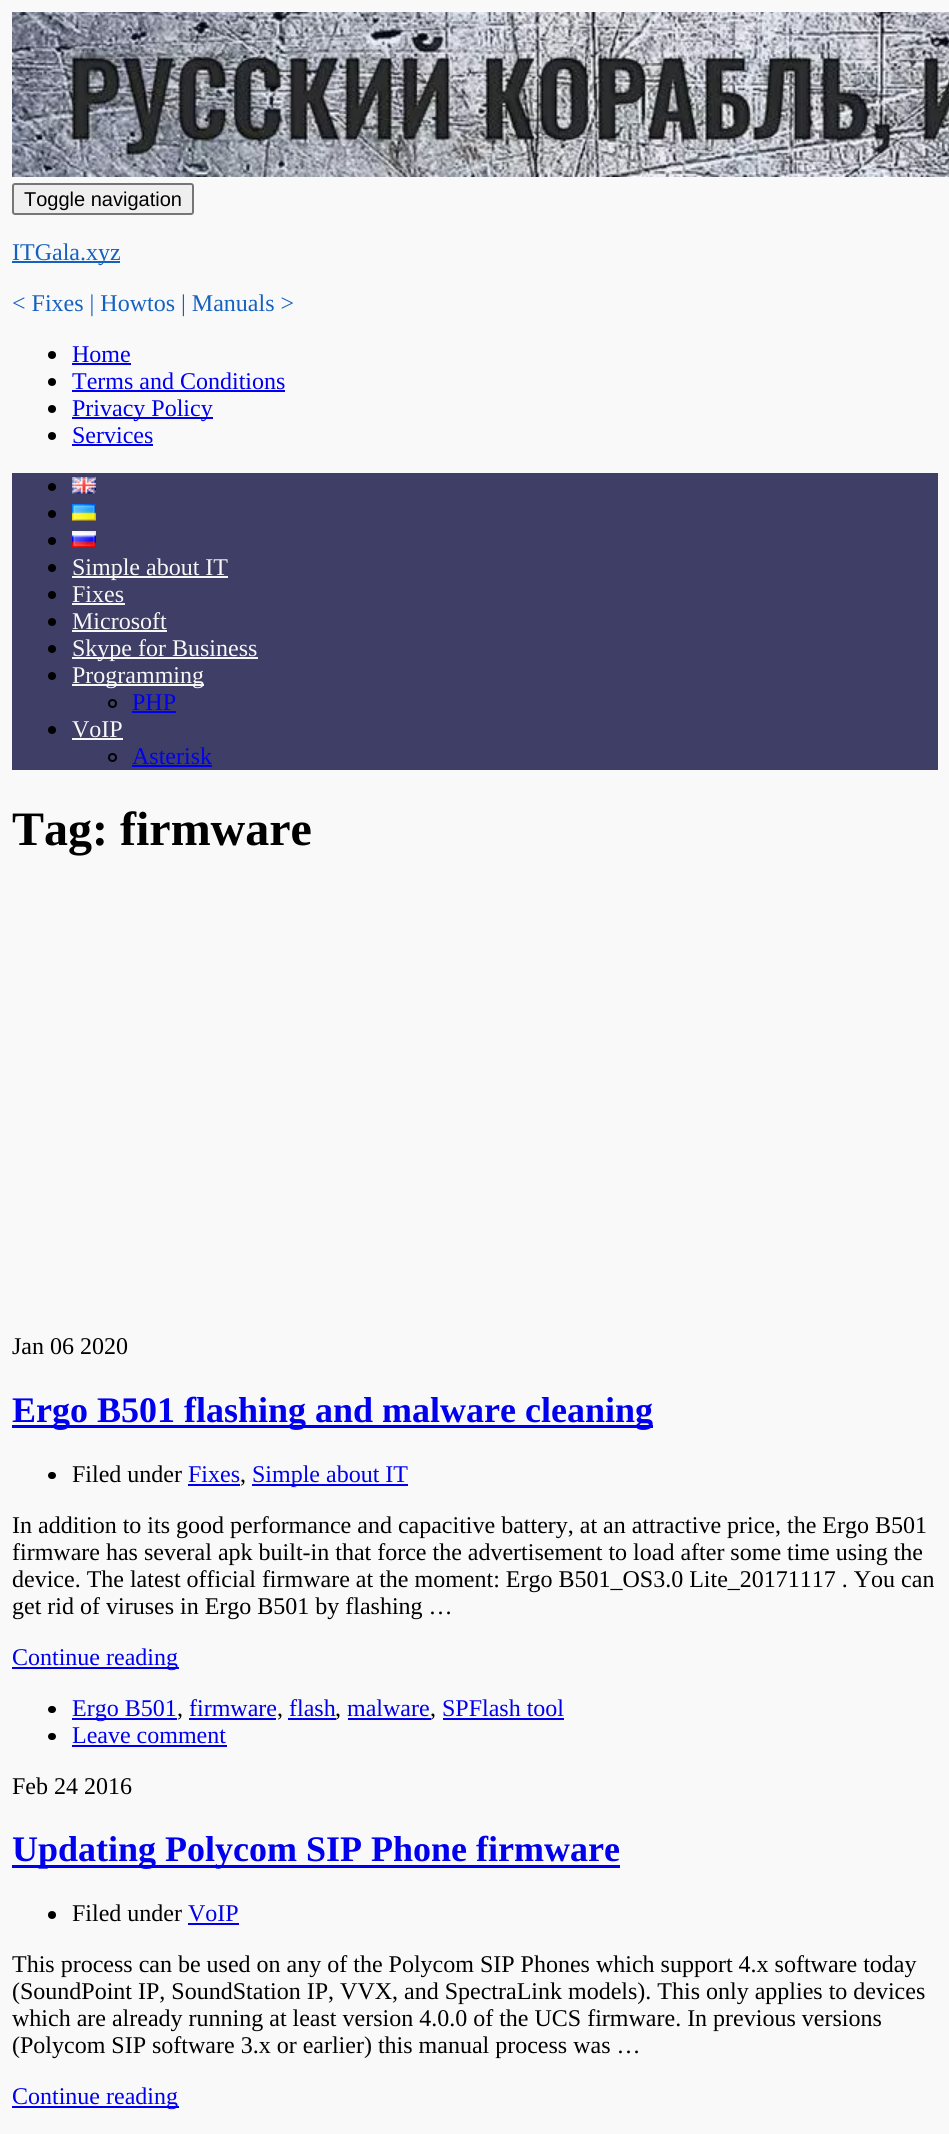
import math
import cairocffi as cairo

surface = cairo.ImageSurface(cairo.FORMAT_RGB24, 949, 2134)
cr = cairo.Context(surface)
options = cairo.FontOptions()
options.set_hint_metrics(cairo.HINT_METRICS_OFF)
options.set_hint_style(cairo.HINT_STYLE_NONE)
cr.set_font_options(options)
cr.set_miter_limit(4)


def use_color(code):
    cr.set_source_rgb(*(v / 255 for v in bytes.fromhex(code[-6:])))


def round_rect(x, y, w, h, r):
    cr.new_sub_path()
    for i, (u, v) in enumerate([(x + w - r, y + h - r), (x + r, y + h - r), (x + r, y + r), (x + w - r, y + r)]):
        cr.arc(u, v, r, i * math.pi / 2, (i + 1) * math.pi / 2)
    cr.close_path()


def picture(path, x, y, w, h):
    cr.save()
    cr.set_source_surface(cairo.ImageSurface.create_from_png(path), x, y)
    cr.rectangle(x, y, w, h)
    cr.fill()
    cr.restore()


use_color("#f9f9f9")
cr.paint()
picture("img1.png", 12, 12, 937, 165)
use_color("#efefef")
round_rect(13, 184, 180, 30, 2)
cr.fill_preserve()
use_color("#767676")
cr.stroke()
cr.select_font_face("Liberation Sans")
cr.set_font_size(20)
use_color("#000000")
cr.move_to(24, 206)
cr.show_text("Toggle navigation")
use_color("#1561bf")
cr.rectangle(12, 261, 108, 2)
cr.fill()
cr.select_font_face("Liberation Serif")
cr.set_font_size(24)
cr.move_to(12, 260)
cr.show_text("ITGala.xyz")
cr.move_to(12, 311)
cr.show_text("< Fixes | Howtos | Manuals >")
use_color("#000000")
cr.new_path()
cr.arc(52, 355, 4, 0, 2 * math.pi)
cr.fill()
use_color("#0000ee")
cr.move_to(72, 362)
cr.show_text("Home")
cr.rectangle(72, 363, 59, 2)
cr.fill()
use_color("#000000")
cr.arc(52, 382, 4, 0, 2 * math.pi)
cr.fill()
use_color("#0000ee")
cr.move_to(72, 389)
cr.show_text("Terms and Conditions")
cr.rectangle(72, 390, 213, 2)
cr.fill()
use_color("#000000")
cr.arc(52, 409, 4, 0, 2 * math.pi)
cr.fill()
use_color("#0000ee")
cr.rectangle(72, 417, 141, 2)
cr.fill()
cr.move_to(72, 416)
cr.show_text("Privacy Policy")
use_color("#000000")
cr.new_path()
cr.arc(52, 436, 4, 0, 2 * math.pi)
cr.fill()
use_color("#0000ee")
cr.move_to(72, 443)
cr.show_text("Services")
cr.rectangle(72, 444, 81, 2)
cr.fill()
use_color("#3e3e66")
cr.rectangle(12, 473, 926, 297)
cr.fill()
use_color("#000000")
cr.arc(52, 487, 4, 0, 2 * math.pi)
cr.fill()
picture("img2.png", 72, 477, 24, 17)
cr.arc(52, 514, 4, 0, 2 * math.pi)
cr.fill()
picture("img3.png", 72, 504, 24, 17)
cr.arc(52, 541, 4, 0, 2 * math.pi)
cr.fill()
picture("img4.png", 72, 531, 24, 17)
cr.arc(52, 568, 4, 0, 2 * math.pi)
cr.fill()
use_color("#f7f7f7")
cr.rectangle(72, 576, 156, 2)
cr.fill()
cr.move_to(72, 575)
cr.show_text("Simple about IT")
use_color("#000000")
cr.new_path()
cr.arc(52, 595, 4, 0, 2 * math.pi)
cr.fill()
use_color("#f7f7f7")
cr.move_to(72, 602)
cr.show_text("Fixes")
cr.rectangle(72, 603, 53, 2)
cr.fill()
use_color("#000000")
cr.arc(52, 622, 4, 0, 2 * math.pi)
cr.fill()
use_color("#f7f7f7")
cr.move_to(72, 629)
cr.show_text("Microsoft")
cr.rectangle(72, 630, 95, 2)
cr.fill()
use_color("#000000")
cr.arc(52, 649, 4, 0, 2 * math.pi)
cr.fill()
use_color("#f7f7f7")
cr.rectangle(72, 657, 186, 2)
cr.fill()
cr.move_to(72, 656)
cr.show_text("Skype for Business")
use_color("#000000")
cr.new_path()
cr.arc(52, 676, 4, 0, 2 * math.pi)
cr.fill()
use_color("#f7f7f7")
cr.rectangle(72, 684, 132, 2)
cr.fill()
cr.move_to(72, 683)
cr.show_text("Programming")
cr.new_path()
cr.arc(112.5, 703.5, 3.5, 0, 2 * math.pi)
use_color("#000000")
cr.stroke()
use_color("#0000ee")
cr.move_to(132, 710)
cr.show_text("PHP")
cr.rectangle(132, 711, 44, 2)
cr.fill()
use_color("#000000")
cr.arc(52, 730, 4, 0, 2 * math.pi)
cr.fill()
use_color("#f7f7f7")
cr.move_to(72, 737)
cr.show_text("VoIP")
cr.rectangle(72, 738, 51, 2)
cr.fill()
cr.arc(112.5, 757.5, 3.5, 0, 2 * math.pi)
use_color("#000000")
cr.stroke()
use_color("#0000ee")
cr.move_to(132, 764)
cr.show_text("Asterisk")
cr.rectangle(132, 765, 80, 2)
cr.fill()
cr.select_font_face("Liberation Serif", cairo.FONT_SLANT_NORMAL, cairo.FONT_WEIGHT_BOLD)
cr.set_font_size(48)
use_color("#000000")
cr.move_to(12, 845)
cr.show_text("Tag: firmware")
cr.select_font_face("Liberation Serif")
cr.set_font_size(24)
cr.move_to(12, 1354)
cr.show_text("Jan 06 2020")
use_color("#0000ee")
cr.rectangle(12, 1425, 641, 3)
cr.fill()
cr.select_font_face("Liberation Serif", cairo.FONT_SLANT_NORMAL, cairo.FONT_WEIGHT_BOLD)
cr.set_font_size(36)
cr.move_to(12, 1422)
cr.show_text("Ergo B501 flashing and malware cleaning")
use_color("#000000")
round_rect(48, 1472, 8, 7, 3.5)
cr.fill()
cr.select_font_face("Liberation Serif")
cr.set_font_size(24)
cr.move_to(72, 1482)
cr.show_text("Filed under")
use_color("#0000ee")
cr.move_to(188, 1482)
cr.show_text("Fixes")
cr.rectangle(252, 1484, 156, 2)
cr.fill()
cr.move_to(252, 1482)
cr.show_text("Simple about IT")
use_color("#000000")
cr.move_to(240, 1482)
cr.show_text(",")
use_color("#0000ee")
cr.rectangle(188, 1484, 52, 2)
cr.fill()
use_color("#000000")
cr.move_to(12, 1533)
cr.show_text("In addition to its good performance and capacitive battery, at an attractive price, the Ergo B501")
cr.move_to(12, 1560)
cr.show_text("firmware has several apk built-in that force the advertisement to load after some time using the")
cr.move_to(12, 1587)
cr.show_text("device. The latest official firmware at the moment: Ergo B501_OS3.0 Lite_20171117 . You can")
cr.move_to(12, 1614)
cr.show_text("get rid of viruses in Ergo B501 by flashing …")
use_color("#0000ee")
cr.rectangle(12, 1667, 167, 2)
cr.fill()
cr.move_to(12, 1665)
cr.show_text("Continue reading")
use_color("#000000")
round_rect(48, 1706, 8, 7, 3.5)
cr.fill()
use_color("#0000ee")
cr.rectangle(72, 1718, 105, 2)
cr.fill()
cr.move_to(72, 1716)
cr.show_text("Ergo B501")
cr.move_to(189, 1716)
cr.show_text("firmware")
cr.move_to(289, 1716)
cr.show_text("flash")
cr.move_to(347, 1716)
cr.show_text("malware")
cr.move_to(442, 1716)
cr.show_text("SPFlash tool")
use_color("#000000")
cr.move_to(177, 1716)
cr.show_text(",")
cr.move_to(277, 1716)
cr.show_text(",")
use_color("#0000ee")
cr.rectangle(189, 1718, 87, 2)
cr.fill()
use_color("#000000")
cr.move_to(335, 1716)
cr.show_text(",")
use_color("#0000ee")
cr.rectangle(288, 1718, 48, 2)
cr.fill()
cr.rectangle(348, 1718, 83, 2)
cr.fill()
use_color("#000000")
cr.move_to(430, 1716)
cr.show_text(",")
use_color("#0000ee")
cr.rectangle(443, 1718, 121, 2)
cr.fill()
use_color("#000000")
round_rect(48, 1733, 8, 7, 3.5)
cr.fill()
use_color("#0000ee")
cr.move_to(72, 1743)
cr.show_text("Leave comment")
cr.rectangle(72, 1745, 155, 2)
cr.fill()
use_color("#000000")
cr.move_to(12, 1794)
cr.show_text("Feb 24 2016")
use_color("#0000ee")
cr.rectangle(12, 1865, 608, 3)
cr.fill()
cr.select_font_face("Liberation Serif", cairo.FONT_SLANT_NORMAL, cairo.FONT_WEIGHT_BOLD)
cr.set_font_size(36)
cr.move_to(12, 1861)
cr.show_text("Updating Polycom SIP Phone firmware")
use_color("#000000")
cr.new_path()
cr.arc(52, 1915, 4, 0, 2 * math.pi)
cr.fill()
cr.select_font_face("Liberation Serif")
cr.set_font_size(24)
cr.move_to(72, 1921)
cr.show_text("Filed under")
use_color("#0000ee")
cr.move_to(188, 1921)
cr.show_text("VoIP")
cr.rectangle(188, 1923, 51, 2)
cr.fill()
use_color("#000000")
cr.move_to(12, 1972)
cr.show_text("This process can be used on any of the Polycom SIP Phones which support 4.x software today")
cr.move_to(12, 1999)
cr.show_text("(SoundPoint IP, SoundStation IP, VVX, and SpectraLink models). This only applies to devices")
cr.move_to(12, 2026)
cr.show_text("which are already running at least version 4.0.0 of the UCS firmware. In previous versions")
cr.move_to(12, 2053)
cr.show_text("(Polycom SIP software 3.x or earlier) this manual process was …")
use_color("#0000ee")
cr.rectangle(12, 2106, 167, 2)
cr.fill()
cr.move_to(12, 2104)
cr.show_text("Continue reading")
surface.write_to_png("result.png")
